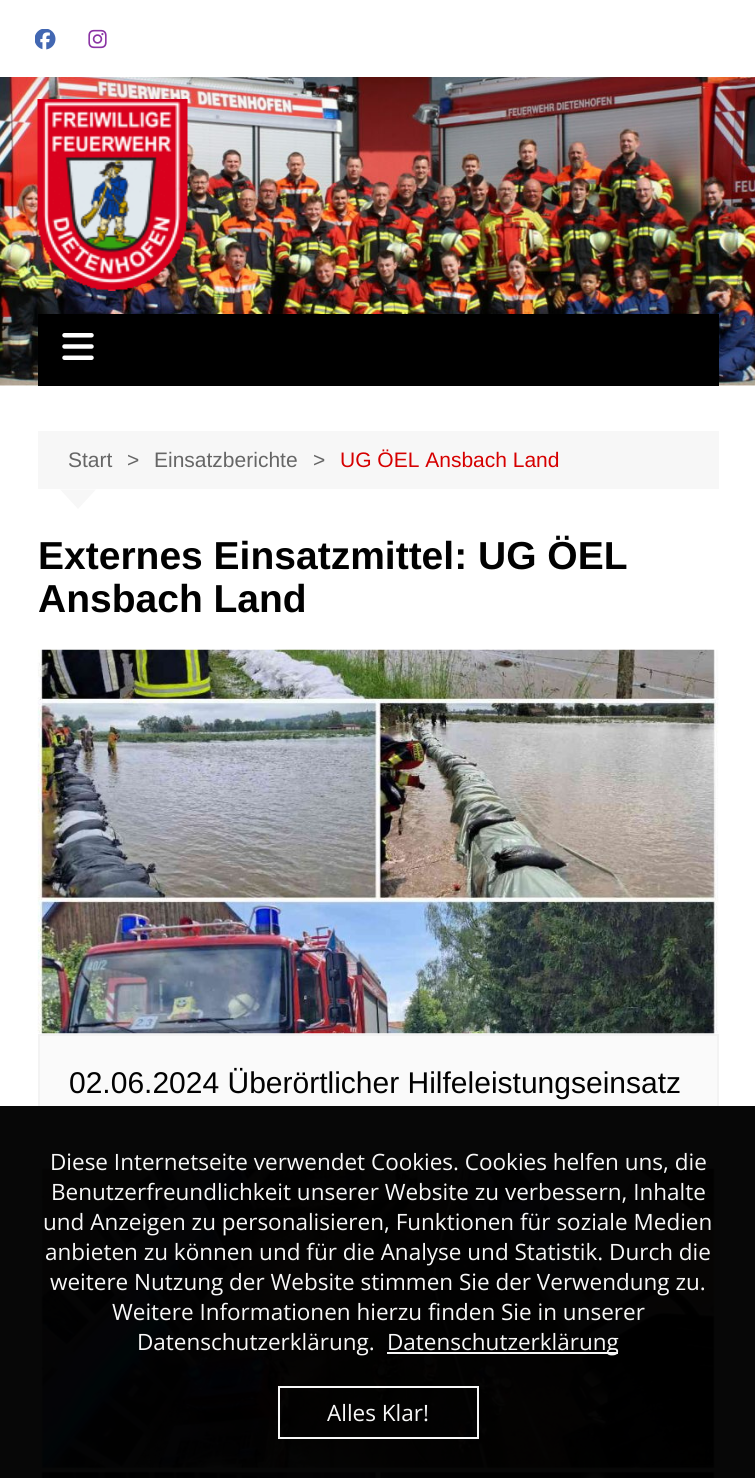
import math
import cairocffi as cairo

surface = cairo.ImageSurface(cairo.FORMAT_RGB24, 755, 1478)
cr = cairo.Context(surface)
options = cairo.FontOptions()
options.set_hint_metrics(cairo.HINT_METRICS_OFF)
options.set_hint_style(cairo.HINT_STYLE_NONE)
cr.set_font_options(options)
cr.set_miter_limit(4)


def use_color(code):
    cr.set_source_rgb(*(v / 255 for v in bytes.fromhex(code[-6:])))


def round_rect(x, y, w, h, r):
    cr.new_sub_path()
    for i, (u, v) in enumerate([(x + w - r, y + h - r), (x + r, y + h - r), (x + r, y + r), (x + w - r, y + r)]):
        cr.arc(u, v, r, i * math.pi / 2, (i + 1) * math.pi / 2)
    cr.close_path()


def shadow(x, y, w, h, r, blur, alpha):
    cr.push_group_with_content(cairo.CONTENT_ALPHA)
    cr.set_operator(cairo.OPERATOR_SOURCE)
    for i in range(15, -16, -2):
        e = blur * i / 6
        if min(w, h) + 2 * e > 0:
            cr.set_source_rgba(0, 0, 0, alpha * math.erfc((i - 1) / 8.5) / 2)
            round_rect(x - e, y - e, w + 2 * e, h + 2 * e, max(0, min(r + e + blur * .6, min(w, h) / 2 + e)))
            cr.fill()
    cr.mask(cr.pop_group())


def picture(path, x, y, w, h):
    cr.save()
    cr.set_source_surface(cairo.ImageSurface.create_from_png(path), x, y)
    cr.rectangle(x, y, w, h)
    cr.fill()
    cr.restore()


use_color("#ffffff")
cr.paint()
picture("img1.png", 0, 77, 755, 309)
use_color("#000000")
shadow(8, 11, 741, 61, 0, 22.5, 0.1)
use_color("#ffffff")
cr.rectangle(0, 0, 755, 77)
cr.fill()
picture("img2.png", 35, 29, 21, 21)
picture("img3.png", 88, 29, 19, 20)
picture("img4.png", 37, 99, 151, 192)
use_color("#000000")
cr.rectangle(38, 314, 681, 72)
cr.fill()
picture("img5.png", 62, 333, 32, 27)
use_color("#f7f7f7")
cr.rectangle(38, 431, 681, 58)
cr.fill()
cr.select_font_face("Liberation Sans")
cr.set_font_size(21)
use_color("#666666")
cr.move_to(68, 467)
cr.show_text("Start")
cr.move_to(127, 467)
cr.show_text(">")
cr.move_to(154, 467)
cr.show_text("Einsatzberichte")
cr.move_to(313, 467)
cr.show_text(">")
use_color("#d60000")
cr.move_to(340, 467)
cr.show_text("UG ÖEL Ansbach Land")
use_color("#f7f7f7")
cr.new_path()
cr.move_to(60, 489.5)
cr.line_to(96, 489.5)
cr.line_to(78, 509)
cr.close_path()
cr.fill()
cr.select_font_face("Liberation Sans", cairo.FONT_SLANT_NORMAL, cairo.FONT_WEIGHT_BOLD)
cr.set_font_size(39)
use_color("#010101")
cr.move_to(38, 569)
cr.show_text("Externes Einsatzmittel: UG ÖEL")
cr.move_to(38, 612)
cr.show_text("Ansbach Land")
picture("img6.png", 37, 649, 682, 385)
use_color("#fafafa")
cr.rectangle(39, 1035, 679, 97)
cr.fill_preserve()
use_color("#f3f3f3")
cr.stroke()
cr.select_font_face("Liberation Sans")
cr.set_font_size(30)
use_color("#010101")
cr.move_to(69, 1093)
cr.show_text("02.06.2024 Überörtlicher Hilfeleistungseinsatz")
picture("img7.png", 37, 1168, 681, 310)
cr.set_source_rgba(0, 0, 0, 0.97)
cr.rectangle(0, 1106, 755, 372)
cr.fill()
cr.select_font_face("Open Sans")
cr.set_font_size(22.5)
use_color("#f8f8f8")
cr.move_to(50, 1170)
cr.show_text("Diese Internetseite verwendet Cookies. Cookies helfen uns, die")
cr.move_to(51, 1200)
cr.show_text("Benutzerfreundlichkeit unserer Website zu verbessern, Inhalte")
cr.move_to(43, 1230)
cr.show_text("und Anzeigen zu personalisieren, Funktionen für soziale Medien")
cr.move_to(45, 1260)
cr.show_text("anbieten zu können und für die Analyse und Statistik. Durch die")
cr.move_to(50, 1290)
cr.show_text("weitere Nutzung der Website stimmen Sie der Verwendung zu.")
cr.move_to(112, 1320)
cr.show_text("Weitere Informationen hierzu finden Sie in unserer")
cr.move_to(137, 1350)
cr.show_text("Datenschutzerklärung.")
cr.set_source_rgba(1, 1, 1, 0.97)
cr.rectangle(387, 1352, 231, 2)
cr.fill()
use_color("#f8f8f8")
cr.move_to(387, 1350)
cr.show_text("Datenschutzerklärung")
cr.rectangle(279, 1387, 199, 51)
cr.set_source_rgba(1, 1, 1, 0.97)
cr.stroke()
use_color("#f8f8f8")
cr.move_to(327, 1421)
cr.show_text("Alles Klar!")
surface.write_to_png("result.png")
